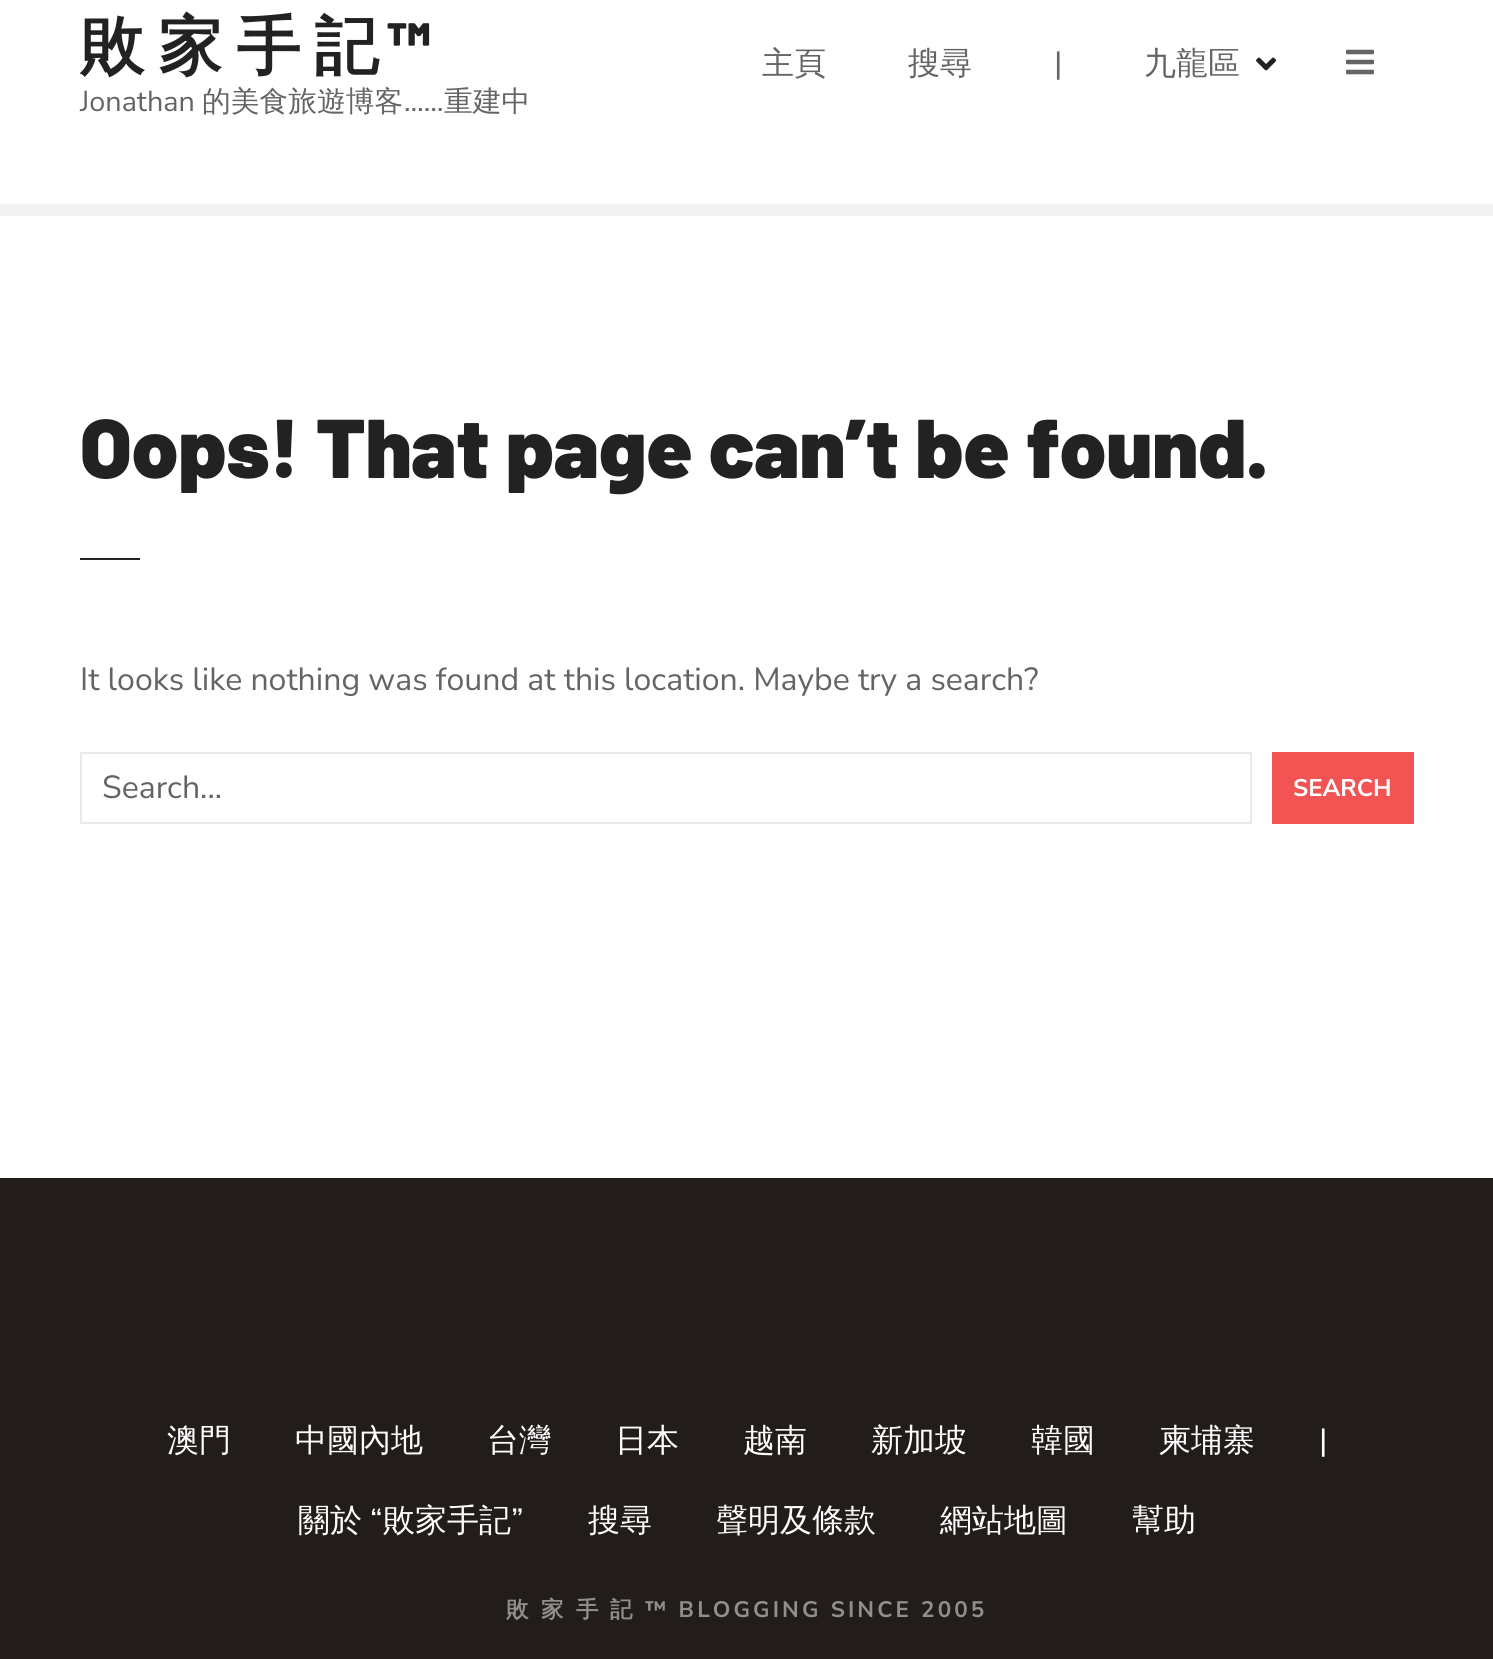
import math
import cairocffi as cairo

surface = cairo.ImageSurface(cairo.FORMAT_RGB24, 1493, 1659)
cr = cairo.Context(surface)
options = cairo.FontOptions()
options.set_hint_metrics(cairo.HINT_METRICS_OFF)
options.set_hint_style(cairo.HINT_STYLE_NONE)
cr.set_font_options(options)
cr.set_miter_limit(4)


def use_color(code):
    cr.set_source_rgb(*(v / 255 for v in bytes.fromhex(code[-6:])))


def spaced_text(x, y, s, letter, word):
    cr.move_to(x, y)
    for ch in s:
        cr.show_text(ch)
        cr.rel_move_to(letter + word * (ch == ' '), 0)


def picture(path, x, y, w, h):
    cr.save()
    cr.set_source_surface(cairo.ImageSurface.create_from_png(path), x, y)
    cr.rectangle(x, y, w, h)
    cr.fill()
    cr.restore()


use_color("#ffffff")
cr.paint()
cr.select_font_face("WenQuanYi Zen Hei", cairo.FONT_SLANT_NORMAL, cairo.FONT_WEIGHT_BOLD)
cr.set_font_size(64)
use_color("#222222")
spaced_text(80, 68, "敗 家 手 記", 0, -5)
cr.select_font_face("Barlow Black")
cr.move_to(387, 68)
cr.show_text("™")
cr.select_font_face("Nunito Sans")
cr.set_font_size(28.75)
use_color("#646464")
cr.move_to(80, 111)
cr.show_text("Jonathan")
cr.select_font_face("WenQuanYi Zen Hei Medium")
cr.move_to(202, 111)
cr.show_text("的美食旅遊博客")
cr.select_font_face("Nunito Sans")
cr.move_to(404, 111)
cr.show_text("……")
cr.select_font_face("WenQuanYi Zen Hei Medium")
cr.move_to(444, 111)
cr.show_text("重建中")
cr.set_font_size(32)
cr.move_to(762, 74)
cr.show_text("主頁")
cr.move_to(908, 74)
cr.show_text("搜尋")
cr.select_font_face("Nunito Sans")
cr.move_to(1054, 74)
cr.show_text("|")
cr.select_font_face("WenQuanYi Zen Hei Medium")
cr.move_to(1144, 74)
cr.show_text("九龍區")
picture("img1.png", 1256, 57, 20, 14)
picture("img2.png", 1346, 49, 28, 26)
use_color("#f2f2f2")
cr.rectangle(0, 204, 1493, 12)
cr.fill()
cr.select_font_face("Barlow Black")
cr.set_font_size(83.25)
use_color("#222222")
cr.move_to(80, 478)
cr.show_text("Oops! That page can’t be found.")
cr.rectangle(80, 558, 60, 2)
cr.fill()
cr.select_font_face("Nunito Sans")
cr.set_font_size(32)
use_color("#646464")
cr.move_to(80, 690)
cr.show_text("It looks like nothing was found at this location. Maybe try a search?")
cr.rectangle(81, 753, 1170, 70)
use_color("#e9e9e9")
cr.stroke()
use_color("#646464")
cr.move_to(102, 798)
cr.show_text("Search...")
use_color("#f25353")
cr.rectangle(1272, 752, 142, 72)
cr.fill()
cr.select_font_face("Nunito Sans", cairo.FONT_SLANT_NORMAL, cairo.FONT_WEIGHT_BOLD)
cr.set_font_size(24)
use_color("#ffffff")
cr.move_to(1293, 796)
cr.show_text("SEARCH")
use_color("#221c1a")
cr.rectangle(0, 1178, 1493, 481)
cr.fill()
cr.select_font_face("WenQuanYi Zen Hei Medium")
cr.set_font_size(32)
use_color("#ffffff")
cr.move_to(167, 1451)
cr.show_text("澳門")
cr.move_to(295, 1451)
cr.show_text("中國內地")
cr.move_to(487, 1451)
cr.show_text("台灣")
cr.move_to(615, 1451)
cr.show_text("日本")
cr.move_to(743, 1451)
cr.show_text("越南")
cr.move_to(871, 1451)
cr.show_text("新加坡")
cr.move_to(1031, 1451)
cr.show_text("韓國")
cr.move_to(1159, 1451)
cr.show_text("柬埔寨")
cr.select_font_face("Nunito Sans")
cr.move_to(1319, 1451)
cr.show_text("|")
cr.select_font_face("WenQuanYi Zen Hei Medium")
cr.move_to(298, 1531)
cr.show_text("關於")
cr.select_font_face("Nunito Sans")
cr.move_to(370, 1531)
cr.show_text("“")
cr.select_font_face("WenQuanYi Zen Hei Medium")
cr.move_to(383, 1531)
cr.show_text("敗家手記")
cr.select_font_face("Nunito Sans")
cr.move_to(511, 1531)
cr.show_text("”")
cr.select_font_face("WenQuanYi Zen Hei Medium")
cr.move_to(588, 1531)
cr.show_text("搜尋")
cr.move_to(716, 1531)
cr.show_text("聲明及條款")
cr.move_to(940, 1531)
cr.show_text("網站地圖")
cr.move_to(1132, 1531)
cr.show_text("幫助")
cr.select_font_face("WenQuanYi Zen Hei", cairo.FONT_SLANT_NORMAL, cairo.FONT_WEIGHT_BOLD)
cr.set_font_size(22.4)
use_color("#918e8d")
spaced_text(506, 1617, "敗", 3.1, 0)
spaced_text(541, 1617, "家", 3.1, 0)
spaced_text(576, 1617, "手", 3.1, 0)
spaced_text(610, 1617, "記", 3.1, 0)
cr.select_font_face("Nunito Sans", cairo.FONT_SLANT_NORMAL, cairo.FONT_WEIGHT_BOLD)
spaced_text(645, 1617, "™ BLOGGING SINCE 2005", 3.1, 0)
surface.write_to_png("result.png")
